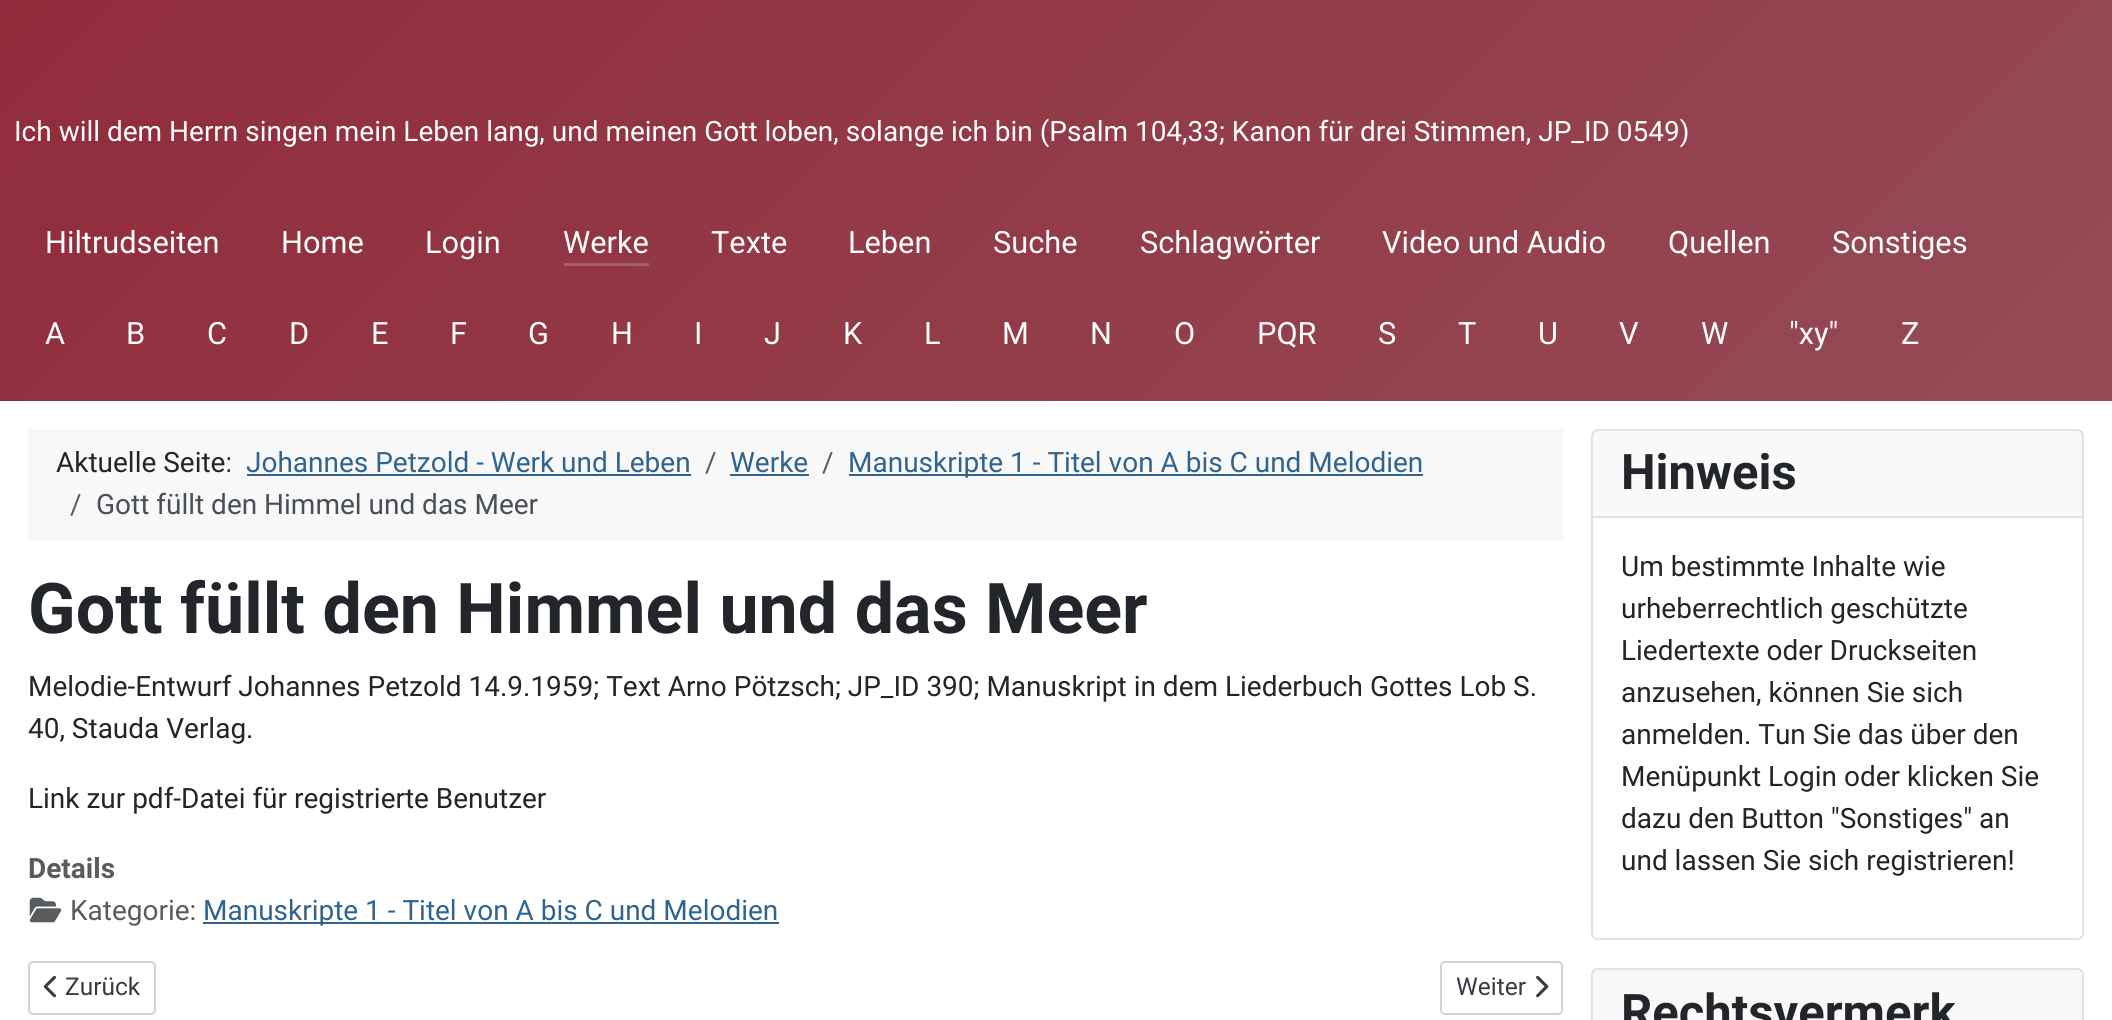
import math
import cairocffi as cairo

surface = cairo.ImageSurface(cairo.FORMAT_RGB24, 2112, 1020)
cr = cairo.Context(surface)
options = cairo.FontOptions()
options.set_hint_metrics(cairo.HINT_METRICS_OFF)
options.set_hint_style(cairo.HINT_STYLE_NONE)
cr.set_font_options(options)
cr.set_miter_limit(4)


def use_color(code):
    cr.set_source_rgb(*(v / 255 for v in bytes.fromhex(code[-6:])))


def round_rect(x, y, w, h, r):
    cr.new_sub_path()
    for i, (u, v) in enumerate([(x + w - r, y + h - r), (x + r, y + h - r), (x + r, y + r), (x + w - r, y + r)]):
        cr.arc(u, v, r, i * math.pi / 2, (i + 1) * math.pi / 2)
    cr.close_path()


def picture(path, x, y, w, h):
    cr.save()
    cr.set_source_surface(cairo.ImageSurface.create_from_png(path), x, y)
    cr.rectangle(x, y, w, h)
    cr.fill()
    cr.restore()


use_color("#ffffff")
cr.paint()
gradient = cairo.LinearGradient(428, -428, 1684, 829)
gradient.add_color_stop_rgba(0, 0.569, 0.169, 0.231, 1)
gradient.add_color_stop_rgba(1, 0.584, 0.294, 0.337, 1)
cr.set_source(gradient)
cr.rectangle(0, 0, 2112, 401)
cr.fill()
cr.select_font_face("Roboto")
cr.set_font_size(28)
use_color("#ffffff")
cr.move_to(14, 141)
cr.show_text("Ich will dem Herrn singen mein Leben lang, und meinen Gott loben, solange ich bin (Psalm 104,33; Kanon für drei Stimmen, JP_ID 0549)")
cr.set_font_size(30.75)
cr.move_to(45, 253)
cr.show_text("Hiltrudseiten")
cr.move_to(281, 253)
cr.show_text("Home")
cr.move_to(425, 253)
cr.show_text("Login")
cr.move_to(563, 253)
cr.show_text("Werke")
use_color("#a85e6a")
cr.rectangle(564, 263, 85, 3)
cr.fill()
use_color("#ffffff")
cr.move_to(711, 253)
cr.show_text("Texte")
cr.move_to(848, 253)
cr.show_text("Leben")
cr.move_to(993, 253)
cr.show_text("Suche")
cr.move_to(1140, 253)
cr.show_text("Schlagwörter")
cr.move_to(1382, 253)
cr.show_text("Video und Audio")
cr.move_to(1668, 253)
cr.show_text("Quellen")
cr.move_to(1832, 253)
cr.show_text("Sonstiges")
cr.move_to(45, 344)
cr.show_text("A")
cr.move_to(126, 344)
cr.show_text("B")
cr.move_to(207, 344)
cr.show_text("C")
cr.move_to(289, 344)
cr.show_text("D")
cr.move_to(371, 344)
cr.show_text("E")
cr.move_to(450, 344)
cr.show_text("F")
cr.move_to(528, 344)
cr.show_text("G")
cr.move_to(611, 344)
cr.show_text("H")
cr.move_to(694, 344)
cr.show_text("I")
cr.move_to(764, 344)
cr.show_text("J")
cr.move_to(843, 344)
cr.show_text("K")
cr.move_to(924, 344)
cr.show_text("L")
cr.move_to(1002, 344)
cr.show_text("M")
cr.move_to(1090, 344)
cr.show_text("N")
cr.move_to(1174, 344)
cr.show_text("O")
cr.move_to(1257, 344)
cr.show_text("PQR")
cr.move_to(1378, 344)
cr.show_text("S")
cr.move_to(1458, 344)
cr.show_text("T")
cr.move_to(1538, 344)
cr.show_text("U")
cr.move_to(1619, 344)
cr.show_text("V")
cr.move_to(1701, 344)
cr.show_text("W")
cr.move_to(1789, 344)
cr.show_text("\"xy\"")
cr.move_to(1901, 344)
cr.show_text("Z")
use_color("#f8f8f8")
cr.rectangle(28, 429, 1535, 112)
cr.fill()
cr.set_font_size(28)
use_color("#22262a")
cr.move_to(56, 472)
cr.show_text("Aktuelle Seite:")
use_color("#30638d")
cr.move_to(246, 472)
cr.show_text("Johannes Petzold - Werk und Leben")
cr.rectangle(247, 474, 444, 2)
cr.fill()
use_color("#595c5f")
cr.move_to(705, 472)
cr.show_text("/")
use_color("#30638d")
cr.move_to(730, 472)
cr.show_text("Werke")
cr.rectangle(730, 474, 79, 2)
cr.fill()
use_color("#595c5f")
cr.move_to(822, 472)
cr.show_text("/")
use_color("#30638d")
cr.rectangle(849, 474, 574, 2)
cr.fill()
cr.move_to(848, 472)
cr.show_text("Manuskripte 1 - Titel von A bis C und Melodien")
use_color("#595c5f")
cr.move_to(70, 514)
cr.show_text("/")
use_color("#484f56")
cr.move_to(96, 514)
cr.show_text("Gott füllt den Himmel und das Meer")
cr.select_font_face("Roboto", cairo.FONT_SLANT_NORMAL, cairo.FONT_WEIGHT_BOLD)
cr.set_font_size(70)
use_color("#22262a")
cr.move_to(28, 633)
cr.show_text("Gott füllt den Himmel und das Meer")
cr.select_font_face("Roboto")
cr.set_font_size(28)
cr.move_to(28, 696)
cr.show_text("Melodie-Entwurf Johannes Petzold 14.9.1959; Text Arno Pötzsch; JP_ID 390; Manuskript in dem Liederbuch Gottes Lob S.")
cr.move_to(28, 738)
cr.show_text("40, Stauda Verlag.")
cr.move_to(28, 808)
cr.show_text("Link zur pdf-Datei für registrierte Benutzer")
cr.select_font_face("Roboto", cairo.FONT_SLANT_NORMAL, cairo.FONT_WEIGHT_BOLD)
use_color("#595c5f")
cr.move_to(28, 878)
cr.show_text("Details")
picture("img1.png", 29, 897, 33, 26)
cr.select_font_face("Roboto")
cr.move_to(70, 920)
cr.show_text("Kategorie:")
use_color("#30638d")
cr.rectangle(203, 922, 576, 2)
cr.fill()
cr.move_to(203, 920)
cr.show_text("Manuskripte 1 - Titel von A bis C und Melodien")
round_rect(29, 962, 126, 52, 4)
use_color("#ced4da")
cr.stroke()
picture("img2.png", 43, 975, 13, 23)
cr.set_font_size(24.5)
use_color("#353b41")
cr.move_to(65, 995)
cr.show_text("Zurück")
round_rect(1441, 962, 121, 52, 4)
use_color("#ced4da")
cr.stroke()
use_color("#353b41")
cr.move_to(1456, 995)
cr.show_text("Weiter")
picture("img3.png", 1536, 975, 13, 23)
round_rect(1592, 430, 491, 509, 6)
use_color("#dfe3e7")
cr.stroke()
cr.set_source_rgba(0.133, 0.149, 0.165, 0.03)
cr.rectangle(1593, 431, 490, 85)
cr.fill()
use_color("#dfe3e7")
cr.rectangle(1593, 516, 490, 2)
cr.fill()
cr.select_font_face("Roboto", cairo.FONT_SLANT_NORMAL, cairo.FONT_WEIGHT_BOLD)
cr.set_font_size(49)
use_color("#22262a")
cr.move_to(1621, 489)
cr.show_text("Hinweis")
cr.select_font_face("Roboto")
cr.set_font_size(28)
cr.move_to(1621, 576)
cr.show_text("Um bestimmte Inhalte wie")
cr.move_to(1621, 618)
cr.show_text("urheberrechtlich geschützte")
cr.move_to(1621, 660)
cr.show_text("Liedertexte oder Druckseiten")
cr.move_to(1621, 702)
cr.show_text("anzusehen, können Sie sich")
cr.move_to(1621, 744)
cr.show_text("anmelden. Tun Sie das über den")
cr.move_to(1621, 786)
cr.show_text("Menüpunkt Login oder klicken Sie")
cr.move_to(1621, 828)
cr.show_text("dazu den Button \"Sonstiges\" an")
cr.move_to(1621, 870)
cr.show_text("und lassen Sie sich registrieren!")
round_rect(1592, 969, 491, 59, 6)
use_color("#dfe3e7")
cr.stroke()
cr.set_source_rgba(0.133, 0.149, 0.165, 0.03)
cr.rectangle(1593, 970, 490, 50)
cr.fill()
cr.select_font_face("Roboto", cairo.FONT_SLANT_NORMAL, cairo.FONT_WEIGHT_BOLD)
cr.set_font_size(49)
use_color("#22262a")
cr.move_to(1621, 1029)
cr.show_text("Rechtsvermerk")
surface.write_to_png("result.png")
